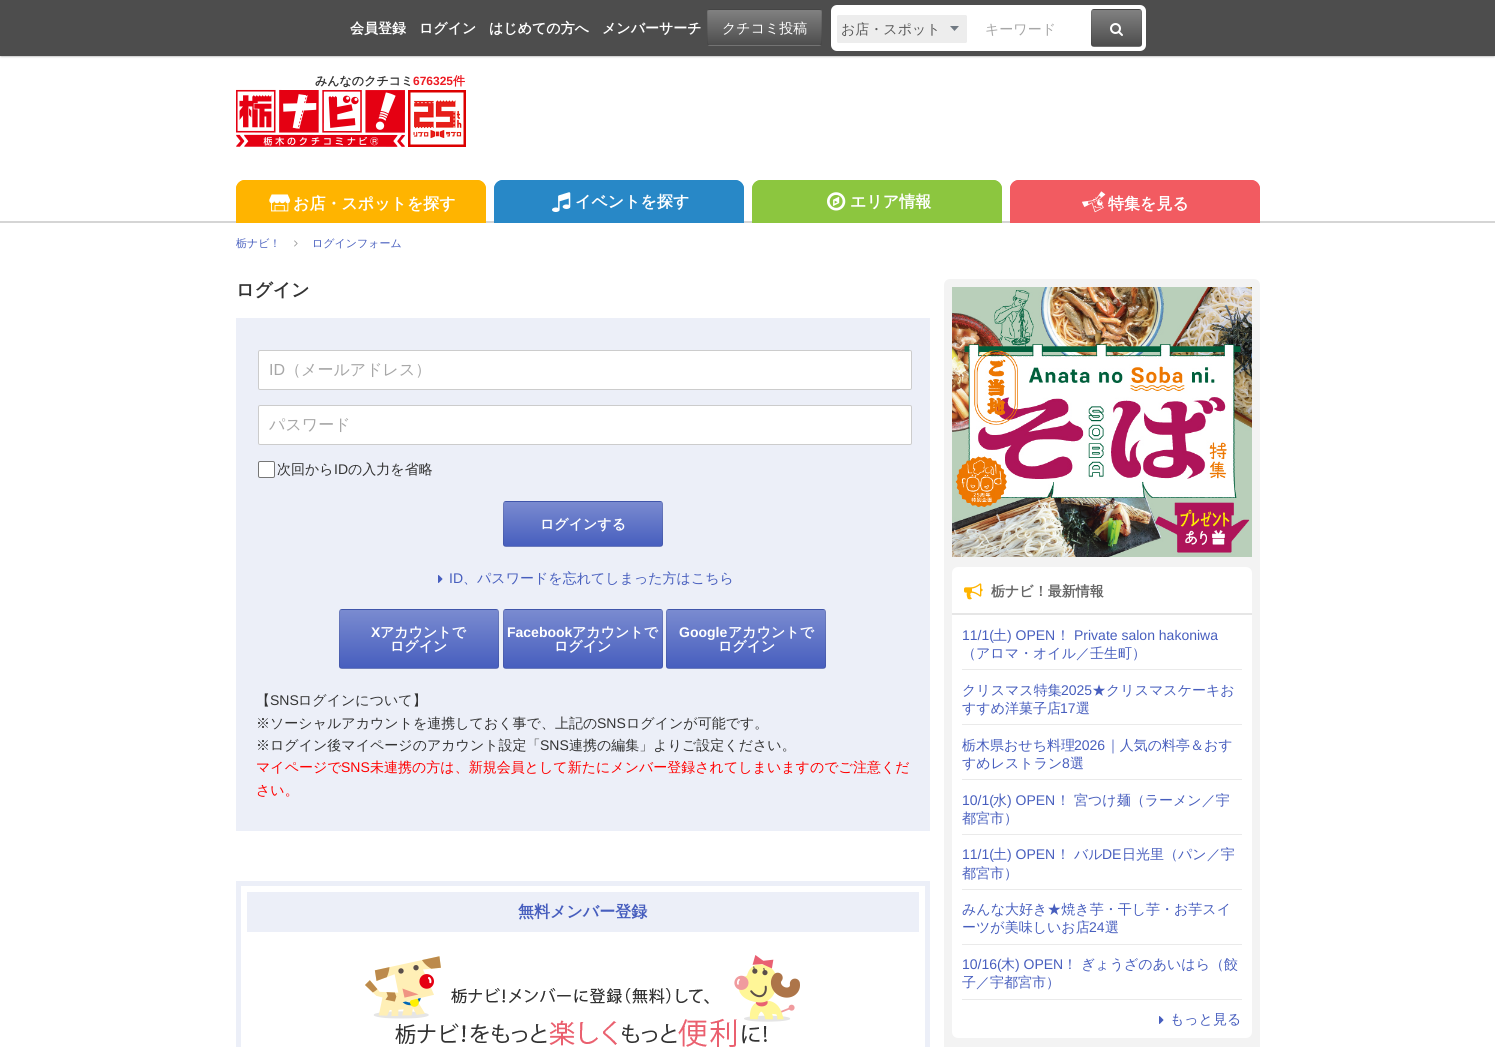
import math
import cairocffi as cairo

surface = cairo.ImageSurface(cairo.FORMAT_RGB24, 1495, 1047)
cr = cairo.Context(surface)
options = cairo.FontOptions()
options.set_hint_metrics(cairo.HINT_METRICS_OFF)
options.set_hint_style(cairo.HINT_STYLE_NONE)
cr.set_font_options(options)
cr.set_miter_limit(4)


def use_color(code):
    cr.set_source_rgb(*(v / 255 for v in bytes.fromhex(code[-6:])))


def round_rect(x, y, w, h, r):
    cr.new_sub_path()
    for i, (u, v) in enumerate([(x + w - r, y + h - r), (x + r, y + h - r), (x + r, y + r), (x + w - r, y + r)]):
        cr.arc(u, v, r, i * math.pi / 2, (i + 1) * math.pi / 2)
    cr.close_path()


def shadow(x, y, w, h, r, blur, alpha):
    cr.push_group_with_content(cairo.CONTENT_ALPHA)
    cr.set_operator(cairo.OPERATOR_SOURCE)
    for i in range(15, -16, -2):
        e = blur * i / 6
        if min(w, h) + 2 * e > 0:
            cr.set_source_rgba(0, 0, 0, alpha * math.erfc((i - 1) / 8.5) / 2)
            round_rect(x - e, y - e, w + 2 * e, h + 2 * e, max(0, min(r + e + blur * .6, min(w, h) / 2 + e)))
            cr.fill()
    cr.mask(cr.pop_group())


def picture(path, x, y, w, h):
    cr.save()
    cr.set_source_surface(cairo.ImageSurface.create_from_png(path), x, y)
    cr.rectangle(x, y, w, h)
    cr.fill()
    cr.restore()


use_color("#ffffff")
cr.paint()
use_color("#000000")
shadow(1, 1, 1493, 54, 0, 1.5, 1)
use_color("#4d4d4d")
cr.rectangle(0, 0, 1495, 56)
cr.fill()
cr.select_font_face("WenQuanYi Zen Hei", cairo.FONT_SLANT_NORMAL, cairo.FONT_WEIGHT_BOLD)
cr.set_font_size(14)
use_color("#ffffff")
cr.move_to(350, 33)
cr.show_text("会員登録")
cr.move_to(419, 33)
cr.show_text("ログイン")
cr.move_to(489, 33)
cr.show_text("はじめての方へ")
cr.move_to(602, 33)
cr.show_text("メンバーサーチ")
cr.save()
round_rect(707, 9, 115, 37, 3)
cr.clip()
gradient = cairo.LinearGradient(765, 10, 765, 45)
gradient.add_color_stop_rgba(0, 0.506, 0.506, 0.506, 1)
gradient.add_color_stop_rgba(1, 0.302, 0.302, 0.302, 1)
cr.set_source(gradient)
cr.rectangle(707, 10, 115, 35)
cr.fill()
gradient = cairo.LinearGradient(765, 45, 765, 80)
gradient.add_color_stop_rgba(0, 0.506, 0.506, 0.506, 1)
gradient.add_color_stop_rgba(1, 0.302, 0.302, 0.302, 1)
cr.set_source(gradient)
cr.rectangle(707, 45, 115, 1)
cr.fill()
cr.restore()
round_rect(707.5, 9.5, 114, 36, 2.5)
cr.set_source_rgba(0, 0, 0, 0.1)
cr.set_line_width(1)
cr.stroke()
cr.select_font_face("WenQuanYi Zen Hei Medium")
use_color("#ffffff")
cr.move_to(722, 33)
cr.show_text("クチコミ投稿")
round_rect(831, 5, 315, 46, 6)
cr.fill()
use_color("#ededed")
round_rect(837, 15, 130, 28, 2)
cr.fill()
use_color("#717a83")
cr.new_path()
cr.move_to(959, 26)
cr.line_to(954.5, 31)
cr.line_to(950, 26)
cr.close_path()
cr.fill()
round_rect(837.5, 15.5, 129, 27, 1.5)
use_color("#ededed")
cr.stroke()
use_color("#5a5a5a")
cr.move_to(841, 34)
cr.show_text("お店・スポット")
use_color("#a7a7a7")
cr.move_to(985, 34)
cr.show_text("キーワード")
cr.save()
round_rect(1091, 9, 51, 38, 3)
cr.clip()
gradient = cairo.LinearGradient(1117, -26, 1117, 10)
gradient.add_color_stop_rgba(0, 0.506, 0.506, 0.506, 1)
gradient.add_color_stop_rgba(1, 0.302, 0.302, 0.302, 1)
cr.set_source(gradient)
cr.rectangle(1091, 9, 51, 1)
cr.fill()
gradient = cairo.LinearGradient(1117, 10, 1117, 46)
gradient.add_color_stop_rgba(0, 0.506, 0.506, 0.506, 1)
gradient.add_color_stop_rgba(1, 0.302, 0.302, 0.302, 1)
cr.set_source(gradient)
cr.rectangle(1091, 10, 51, 36)
cr.fill()
gradient = cairo.LinearGradient(1117, 46, 1117, 82)
gradient.add_color_stop_rgba(0, 0.506, 0.506, 0.506, 1)
gradient.add_color_stop_rgba(1, 0.302, 0.302, 0.302, 1)
cr.set_source(gradient)
cr.rectangle(1091, 46, 51, 1)
cr.fill()
cr.restore()
round_rect(1091.5, 9.5, 50, 37, 2.5)
cr.set_source_rgba(0, 0, 0, 0.1)
cr.stroke()
picture("img1.png", 1110, 23, 13, 13)
cr.select_font_face("WenQuanYi Zen Hei", cairo.FONT_SLANT_NORMAL, cairo.FONT_WEIGHT_BOLD)
cr.set_font_size(12)
use_color("#333333")
cr.move_to(315, 85)
cr.show_text("みんなのクチコミ")
cr.select_font_face("Liberation Sans", cairo.FONT_SLANT_NORMAL, cairo.FONT_WEIGHT_BOLD)
use_color("#ed1c24")
cr.move_to(413, 85)
cr.show_text("676325")
cr.select_font_face("WenQuanYi Zen Hei", cairo.FONT_SLANT_NORMAL, cairo.FONT_WEIGHT_BOLD)
cr.move_to(453, 85)
cr.show_text("件")
picture("img2.png", 236, 89, 230, 58)
use_color("#d5d5d5")
cr.rectangle(0, 221, 1495, 2)
cr.fill()
use_color("#ffb400")
cr.new_path()
cr.move_to(245, 180)
cr.line_to(477, 180)
cr.curve_to(482, 180, 486, 184, 486, 189)
cr.line_to(486, 223)
cr.line_to(236, 223)
cr.line_to(236, 189)
cr.curve_to(236, 184, 240, 180, 245, 180)
cr.close_path()
cr.fill()
cr.set_fill_rule(cairo.FILL_RULE_EVEN_ODD)
cr.new_path()
cr.move_to(245, 180)
cr.line_to(477, 180)
cr.curve_to(482, 180, 486, 184, 486, 189)
cr.line_to(486, 223)
cr.line_to(236, 223)
cr.line_to(236, 189)
cr.curve_to(236, 184, 240, 180, 245, 180)
cr.close_path()
cr.move_to(245, 182)
cr.line_to(477, 182)
cr.curve_to(481, 182, 484, 185, 484, 189)
cr.line_to(484, 223)
cr.line_to(238, 223)
cr.line_to(238, 189)
cr.curve_to(238, 185, 241, 182, 245, 182)
cr.close_path()
cr.fill()
picture("img3.png", 269, 194, 22, 18)
cr.set_font_size(16)
use_color("#ffffff")
cr.move_to(293, 209)
cr.show_text("お店・スポットを探す")
use_color("#2888c7")
cr.new_path()
cr.move_to(503, 180)
cr.line_to(735, 180)
cr.curve_to(740, 180, 744, 184, 744, 189)
cr.line_to(744, 223)
cr.line_to(494, 223)
cr.line_to(494, 189)
cr.curve_to(494, 184, 498, 180, 503, 180)
cr.close_path()
cr.fill()
cr.new_path()
cr.move_to(503, 180)
cr.line_to(735, 180)
cr.curve_to(740, 180, 744, 184, 744, 189)
cr.line_to(744, 223)
cr.line_to(494, 223)
cr.line_to(494, 189)
cr.curve_to(494, 184, 498, 180, 503, 180)
cr.close_path()
cr.move_to(503, 182)
cr.line_to(735, 182)
cr.curve_to(739, 182, 742, 185, 742, 189)
cr.line_to(742, 223)
cr.line_to(496, 223)
cr.line_to(496, 189)
cr.curve_to(496, 185, 499, 182, 503, 182)
cr.close_path()
cr.fill()
picture("img4.png", 552, 192, 19, 20)
use_color("#ffffff")
cr.move_to(575, 207)
cr.show_text("イベントを探す")
use_color("#8cc63f")
cr.new_path()
cr.move_to(761, 180)
cr.line_to(993, 180)
cr.curve_to(998, 180, 1002, 184, 1002, 189)
cr.line_to(1002, 223)
cr.line_to(752, 223)
cr.line_to(752, 189)
cr.curve_to(752, 184, 756, 180, 761, 180)
cr.close_path()
cr.fill()
cr.new_path()
cr.move_to(761, 180)
cr.line_to(993, 180)
cr.curve_to(998, 180, 1002, 184, 1002, 189)
cr.line_to(1002, 223)
cr.line_to(752, 223)
cr.line_to(752, 189)
cr.curve_to(752, 184, 756, 180, 761, 180)
cr.close_path()
cr.move_to(761, 182)
cr.line_to(993, 182)
cr.curve_to(997, 182, 1000, 185, 1000, 189)
cr.line_to(1000, 223)
cr.line_to(754, 223)
cr.line_to(754, 189)
cr.curve_to(754, 185, 757, 182, 761, 182)
cr.close_path()
cr.fill()
picture("img5.png", 827, 192, 19, 19)
use_color("#ffffff")
cr.move_to(850, 207)
cr.show_text("エリア情報")
use_color("#f25b61")
cr.new_path()
cr.move_to(1019, 180)
cr.line_to(1251, 180)
cr.curve_to(1256, 180, 1260, 184, 1260, 189)
cr.line_to(1260, 223)
cr.line_to(1010, 223)
cr.line_to(1010, 189)
cr.curve_to(1010, 184, 1014, 180, 1019, 180)
cr.close_path()
cr.fill()
cr.new_path()
cr.move_to(1019, 180)
cr.line_to(1251, 180)
cr.curve_to(1256, 180, 1260, 184, 1260, 189)
cr.line_to(1260, 223)
cr.line_to(1010, 223)
cr.line_to(1010, 189)
cr.curve_to(1010, 184, 1014, 180, 1019, 180)
cr.close_path()
cr.move_to(1019, 182)
cr.line_to(1251, 182)
cr.curve_to(1255, 182, 1258, 185, 1258, 189)
cr.line_to(1258, 223)
cr.line_to(1012, 223)
cr.line_to(1012, 189)
cr.curve_to(1012, 185, 1015, 182, 1019, 182)
cr.close_path()
cr.fill()
picture("img6.png", 1082, 191, 24, 22)
use_color("#ffffff")
cr.move_to(1108, 209)
cr.show_text("特集を見る")
cr.select_font_face("WenQuanYi Zen Hei Medium")
cr.set_font_size(11)
use_color("#475ebe")
cr.move_to(236, 247)
cr.show_text("栃ナビ！")
picture("img7.png", 294, 240, 4, 7)
cr.move_to(312, 247)
cr.show_text("ログインフォーム")
cr.select_font_face("WenQuanYi Zen Hei", cairo.FONT_SLANT_NORMAL, cairo.FONT_WEIGHT_BOLD)
cr.set_font_size(18)
use_color("#333333")
cr.move_to(236, 296)
cr.show_text("ログイン")
use_color("#eceff8")
cr.rectangle(236, 318, 694, 513)
cr.fill()
use_color("#ffffff")
round_rect(258.5, 350.5, 653, 39, 1.5)
cr.fill_preserve()
use_color("#cccccc")
cr.stroke()
cr.select_font_face("Liberation Sans")
cr.set_font_size(16)
use_color("#a7a7a7")
cr.move_to(269, 375)
cr.show_text("ID")
cr.select_font_face("WenQuanYi Zen Hei Medium")
cr.move_to(285, 375)
cr.show_text("（メールアドレス）")
use_color("#ffffff")
round_rect(258.5, 405.5, 653, 39, 1.5)
cr.fill_preserve()
use_color("#cccccc")
cr.stroke()
use_color("#a7a7a7")
cr.move_to(269, 430)
cr.show_text("パスワード")
use_color("#ffffff")
round_rect(258.5, 461.5, 16, 16, 1.5)
cr.fill_preserve()
use_color("#767676")
cr.stroke()
cr.set_font_size(14)
use_color("#333333")
cr.move_to(277, 474)
cr.show_text("次回から")
cr.select_font_face("Liberation Sans")
cr.move_to(334, 474)
cr.show_text("ID")
cr.select_font_face("WenQuanYi Zen Hei Medium")
cr.move_to(348, 474)
cr.show_text("の入力を省略")
cr.save()
cr.set_fill_rule(cairo.FILL_RULE_WINDING)
round_rect(503, 501, 160, 46, 3)
cr.clip()
gradient = cairo.LinearGradient(583, 458, 583, 502)
gradient.add_color_stop_rgba(0, 0.478, 0.545, 0.816, 1)
gradient.add_color_stop_rgba(1, 0.278, 0.369, 0.745, 1)
cr.set_source(gradient)
cr.rectangle(503, 501, 160, 1)
cr.fill()
gradient = cairo.LinearGradient(583, 502, 583, 546)
gradient.add_color_stop_rgba(0, 0.478, 0.545, 0.816, 1)
gradient.add_color_stop_rgba(1, 0.278, 0.369, 0.745, 1)
cr.set_source(gradient)
cr.rectangle(503, 502, 160, 44)
cr.fill()
gradient = cairo.LinearGradient(583, 546, 583, 590)
gradient.add_color_stop_rgba(0, 0.478, 0.545, 0.816, 1)
gradient.add_color_stop_rgba(1, 0.278, 0.369, 0.745, 1)
cr.set_source(gradient)
cr.rectangle(503, 546, 160, 1)
cr.fill()
cr.restore()
round_rect(503.5, 501.5, 159, 45, 2.5)
cr.set_source_rgba(0, 0, 0, 0.1)
cr.stroke()
cr.select_font_face("WenQuanYi Zen Hei", cairo.FONT_SLANT_NORMAL, cairo.FONT_WEIGHT_BOLD)
use_color("#ffffff")
cr.move_to(540, 529)
cr.show_text("ログインする")
picture("img8.png", 438, 575, 5, 8)
cr.select_font_face("Liberation Sans")
use_color("#475ebe")
cr.move_to(449, 583)
cr.show_text("ID")
cr.select_font_face("WenQuanYi Zen Hei Medium")
cr.move_to(463, 583)
cr.show_text("、パスワードを忘れてしまった方はこちら")
cr.save()
cr.set_fill_rule(cairo.FILL_RULE_WINDING)
round_rect(339, 609, 160, 60, 3)
cr.clip()
gradient = cairo.LinearGradient(419, 552, 419, 610)
gradient.add_color_stop_rgba(0, 0.478, 0.545, 0.816, 1)
gradient.add_color_stop_rgba(1, 0.278, 0.369, 0.745, 1)
cr.set_source(gradient)
cr.rectangle(339, 609, 160, 1)
cr.fill()
gradient = cairo.LinearGradient(419, 610, 419, 668)
gradient.add_color_stop_rgba(0, 0.478, 0.545, 0.816, 1)
gradient.add_color_stop_rgba(1, 0.278, 0.369, 0.745, 1)
cr.set_source(gradient)
cr.rectangle(339, 610, 160, 58)
cr.fill()
gradient = cairo.LinearGradient(419, 668, 419, 726)
gradient.add_color_stop_rgba(0, 0.478, 0.545, 0.816, 1)
gradient.add_color_stop_rgba(1, 0.278, 0.369, 0.745, 1)
cr.set_source(gradient)
cr.rectangle(339, 668, 160, 1)
cr.fill()
cr.restore()
round_rect(339.5, 609.5, 159, 59, 2.5)
cr.set_source_rgba(0, 0, 0, 0.1)
cr.stroke()
cr.select_font_face("Liberation Sans", cairo.FONT_SLANT_NORMAL, cairo.FONT_WEIGHT_BOLD)
use_color("#ffffff")
cr.move_to(371, 637)
cr.show_text("X")
cr.select_font_face("WenQuanYi Zen Hei", cairo.FONT_SLANT_NORMAL, cairo.FONT_WEIGHT_BOLD)
cr.move_to(380, 637)
cr.show_text("アカウントで")
cr.move_to(390, 651)
cr.show_text("ログイン")
cr.save()
cr.set_fill_rule(cairo.FILL_RULE_WINDING)
round_rect(503, 609, 160, 60, 3)
cr.clip()
gradient = cairo.LinearGradient(583, 552, 583, 610)
gradient.add_color_stop_rgba(0, 0.478, 0.545, 0.816, 1)
gradient.add_color_stop_rgba(1, 0.278, 0.369, 0.745, 1)
cr.set_source(gradient)
cr.rectangle(503, 609, 160, 1)
cr.fill()
gradient = cairo.LinearGradient(583, 610, 583, 668)
gradient.add_color_stop_rgba(0, 0.478, 0.545, 0.816, 1)
gradient.add_color_stop_rgba(1, 0.278, 0.369, 0.745, 1)
cr.set_source(gradient)
cr.rectangle(503, 610, 160, 58)
cr.fill()
gradient = cairo.LinearGradient(583, 668, 583, 726)
gradient.add_color_stop_rgba(0, 0.478, 0.545, 0.816, 1)
gradient.add_color_stop_rgba(1, 0.278, 0.369, 0.745, 1)
cr.set_source(gradient)
cr.rectangle(503, 668, 160, 1)
cr.fill()
cr.restore()
round_rect(503.5, 609.5, 159, 59, 2.5)
cr.set_source_rgba(0, 0, 0, 0.1)
cr.stroke()
cr.select_font_face("Liberation Sans", cairo.FONT_SLANT_NORMAL, cairo.FONT_WEIGHT_BOLD)
use_color("#ffffff")
cr.move_to(507, 637)
cr.show_text("Facebook")
cr.select_font_face("WenQuanYi Zen Hei", cairo.FONT_SLANT_NORMAL, cairo.FONT_WEIGHT_BOLD)
cr.move_to(572, 637)
cr.show_text("アカウントで")
cr.move_to(554, 651)
cr.show_text("ログイン")
cr.save()
cr.set_fill_rule(cairo.FILL_RULE_WINDING)
round_rect(666, 609, 160, 60, 3)
cr.clip()
gradient = cairo.LinearGradient(746, 552, 746, 610)
gradient.add_color_stop_rgba(0, 0.478, 0.545, 0.816, 1)
gradient.add_color_stop_rgba(1, 0.278, 0.369, 0.745, 1)
cr.set_source(gradient)
cr.rectangle(666, 609, 160, 1)
cr.fill()
gradient = cairo.LinearGradient(746, 610, 746, 668)
gradient.add_color_stop_rgba(0, 0.478, 0.545, 0.816, 1)
gradient.add_color_stop_rgba(1, 0.278, 0.369, 0.745, 1)
cr.set_source(gradient)
cr.rectangle(666, 610, 160, 58)
cr.fill()
gradient = cairo.LinearGradient(746, 668, 746, 726)
gradient.add_color_stop_rgba(0, 0.478, 0.545, 0.816, 1)
gradient.add_color_stop_rgba(1, 0.278, 0.369, 0.745, 1)
cr.set_source(gradient)
cr.rectangle(666, 668, 160, 1)
cr.fill()
cr.restore()
round_rect(666.5, 609.5, 159, 59, 2.5)
cr.set_source_rgba(0, 0, 0, 0.1)
cr.stroke()
cr.select_font_face("Liberation Sans", cairo.FONT_SLANT_NORMAL, cairo.FONT_WEIGHT_BOLD)
use_color("#ffffff")
cr.move_to(679, 637)
cr.show_text("Google")
cr.select_font_face("WenQuanYi Zen Hei", cairo.FONT_SLANT_NORMAL, cairo.FONT_WEIGHT_BOLD)
cr.move_to(728, 637)
cr.show_text("アカウントで")
cr.move_to(718, 651)
cr.show_text("ログイン")
cr.select_font_face("WenQuanYi Zen Hei Medium")
use_color("#333333")
cr.move_to(256, 705)
cr.show_text("【")
cr.select_font_face("Liberation Sans")
cr.move_to(270, 705)
cr.show_text("SNS")
cr.select_font_face("WenQuanYi Zen Hei Medium")
cr.move_to(298, 705)
cr.show_text("ログインについて】")
cr.move_to(256, 728)
cr.show_text("※ソーシャルアカウントを連携しておく事で、上記の")
cr.select_font_face("Liberation Sans")
cr.move_to(597, 728)
cr.show_text("SNS")
cr.select_font_face("WenQuanYi Zen Hei Medium")
cr.move_to(626, 728)
cr.show_text("ログインが可能です。")
cr.move_to(256, 750)
cr.show_text("※ログイン後マイページのアカウント設定「")
cr.select_font_face("Liberation Sans")
cr.move_to(540, 750)
cr.show_text("SNS")
cr.select_font_face("WenQuanYi Zen Hei Medium")
cr.move_to(569, 750)
cr.show_text("連携の編集」よりご設定ください。")
use_color("#ff0000")
cr.move_to(256, 772)
cr.show_text("マイページで")
cr.select_font_face("Liberation Sans")
cr.move_to(341, 772)
cr.show_text("SNS")
cr.select_font_face("WenQuanYi Zen Hei Medium")
cr.move_to(370, 772)
cr.show_text("未連携の方は、新規会員として新たにメンバー登録されてしまいますのでご注意くだ")
cr.move_to(256, 795)
cr.show_text("さい。")
cr.rectangle(238.5, 883.5, 689, 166)
use_color("#eceff8")
cr.set_line_width(5)
cr.stroke()
cr.rectangle(247, 892, 672, 40)
cr.fill()
cr.select_font_face("WenQuanYi Zen Hei", cairo.FONT_SLANT_NORMAL, cairo.FONT_WEIGHT_BOLD)
cr.set_font_size(16)
use_color("#475ebe")
cr.move_to(518, 917)
cr.show_text("無料メンバー登録")
picture("img9.png", 365, 955, 435, 92)
use_color("#f3f3f3")
round_rect(944, 279, 316, 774, 6)
cr.fill()
picture("img10.png", 952, 287, 300, 270)
use_color("#ffffff")
round_rect(952, 567, 300, 471, 6)
cr.fill()
use_color("#e6e6e6")
cr.rectangle(952, 613, 300, 2)
cr.fill()
picture("img11.png", 964, 583, 19, 17)
cr.set_font_size(14)
use_color("#666666")
cr.move_to(991, 596)
cr.show_text("栃ナビ！最新情報")
use_color("#eaeaea")
cr.rectangle(962, 669, 280, 1)
cr.fill()
cr.select_font_face("Liberation Sans")
use_color("#475ebe")
cr.move_to(962, 640)
cr.show_text("11/1(")
cr.select_font_face("WenQuanYi Zen Hei Medium")
cr.move_to(993, 640)
cr.show_text("土")
cr.select_font_face("Liberation Sans")
cr.move_to(1007, 640)
cr.show_text(") OPEN")
cr.select_font_face("WenQuanYi Zen Hei Medium")
cr.move_to(1056, 640)
cr.show_text("！")
cr.select_font_face("Liberation Sans")
cr.move_to(1074, 640)
cr.show_text("Private salon hakoniwa")
cr.select_font_face("WenQuanYi Zen Hei Medium")
cr.move_to(962, 658)
cr.show_text("（アロマ・オイル／壬生町）")
use_color("#eaeaea")
cr.rectangle(962, 724, 280, 1)
cr.fill()
use_color("#475ebe")
cr.move_to(962, 695)
cr.show_text("クリスマス特集")
cr.select_font_face("Liberation Sans")
cr.move_to(1061, 695)
cr.show_text("2025")
cr.select_font_face("WenQuanYi Zen Hei Medium")
cr.move_to(1092, 695)
cr.show_text("★クリスマスケーキお")
cr.move_to(962, 713)
cr.show_text("すすめ洋菓子店")
cr.select_font_face("Liberation Sans")
cr.move_to(1060, 713)
cr.show_text("17")
cr.select_font_face("WenQuanYi Zen Hei Medium")
cr.move_to(1076, 713)
cr.show_text("選")
use_color("#eaeaea")
cr.rectangle(962, 779, 280, 1)
cr.fill()
use_color("#475ebe")
cr.move_to(962, 750)
cr.show_text("栃木県おせち料理")
cr.select_font_face("Liberation Sans")
cr.move_to(1074, 750)
cr.show_text("2026")
cr.select_font_face("WenQuanYi Zen Hei Medium")
cr.move_to(1106, 750)
cr.show_text("｜人気の料亭＆おす")
cr.move_to(962, 768)
cr.show_text("すめレストラン")
cr.select_font_face("Liberation Sans")
cr.move_to(1062, 768)
cr.show_text("8")
cr.select_font_face("WenQuanYi Zen Hei Medium")
cr.move_to(1070, 768)
cr.show_text("選")
use_color("#eaeaea")
cr.rectangle(962, 834, 280, 1)
cr.fill()
cr.select_font_face("Liberation Sans")
use_color("#475ebe")
cr.move_to(962, 805)
cr.show_text("10/1(")
cr.select_font_face("WenQuanYi Zen Hei Medium")
cr.move_to(993, 805)
cr.show_text("水")
cr.select_font_face("Liberation Sans")
cr.move_to(1007, 805)
cr.show_text(") OPEN")
cr.select_font_face("WenQuanYi Zen Hei Medium")
cr.move_to(1056, 805)
cr.show_text("！")
cr.move_to(1074, 805)
cr.show_text("宮つけ麺（ラーメン／宇")
cr.move_to(962, 823)
cr.show_text("都宮市）")
use_color("#eaeaea")
cr.rectangle(962, 889, 280, 1)
cr.fill()
cr.select_font_face("Liberation Sans")
use_color("#475ebe")
cr.move_to(962, 859)
cr.show_text("11/1(")
cr.select_font_face("WenQuanYi Zen Hei Medium")
cr.move_to(993, 859)
cr.show_text("土")
cr.select_font_face("Liberation Sans")
cr.move_to(1007, 859)
cr.show_text(") OPEN")
cr.select_font_face("WenQuanYi Zen Hei Medium")
cr.move_to(1056, 859)
cr.show_text("！")
cr.move_to(1074, 859)
cr.show_text("バル")
cr.select_font_face("Liberation Sans")
cr.move_to(1102, 859)
cr.show_text("DE")
cr.select_font_face("WenQuanYi Zen Hei Medium")
cr.move_to(1122, 859)
cr.show_text("日光里（パン／宇")
cr.move_to(962, 878)
cr.show_text("都宮市）")
use_color("#eaeaea")
cr.rectangle(962, 944, 280, 1)
cr.fill()
use_color("#475ebe")
cr.move_to(962, 914)
cr.show_text("みんな大好き★焼き芋・干し芋・お芋スイ")
cr.move_to(962, 932)
cr.show_text("ーツが美味しいお店")
cr.select_font_face("Liberation Sans")
cr.move_to(1089, 932)
cr.show_text("24")
cr.select_font_face("WenQuanYi Zen Hei Medium")
cr.move_to(1105, 932)
cr.show_text("選")
use_color("#eaeaea")
cr.rectangle(962, 999, 280, 1)
cr.fill()
cr.select_font_face("Liberation Sans")
use_color("#475ebe")
cr.move_to(962, 969)
cr.show_text("10/16(")
cr.select_font_face("WenQuanYi Zen Hei Medium")
cr.move_to(1001, 969)
cr.show_text("木")
cr.select_font_face("Liberation Sans")
cr.move_to(1015, 969)
cr.show_text(") OPEN")
cr.select_font_face("WenQuanYi Zen Hei Medium")
cr.move_to(1063, 969)
cr.show_text("！")
cr.move_to(1081, 969)
cr.show_text("ぎょうざのあいはら（餃")
cr.move_to(962, 987)
cr.show_text("子／宇都宮市）")
picture("img12.png", 1159, 1016, 5, 8)
cr.move_to(1170, 1024)
cr.show_text("もっと見る")
surface.write_to_png("result.png")
